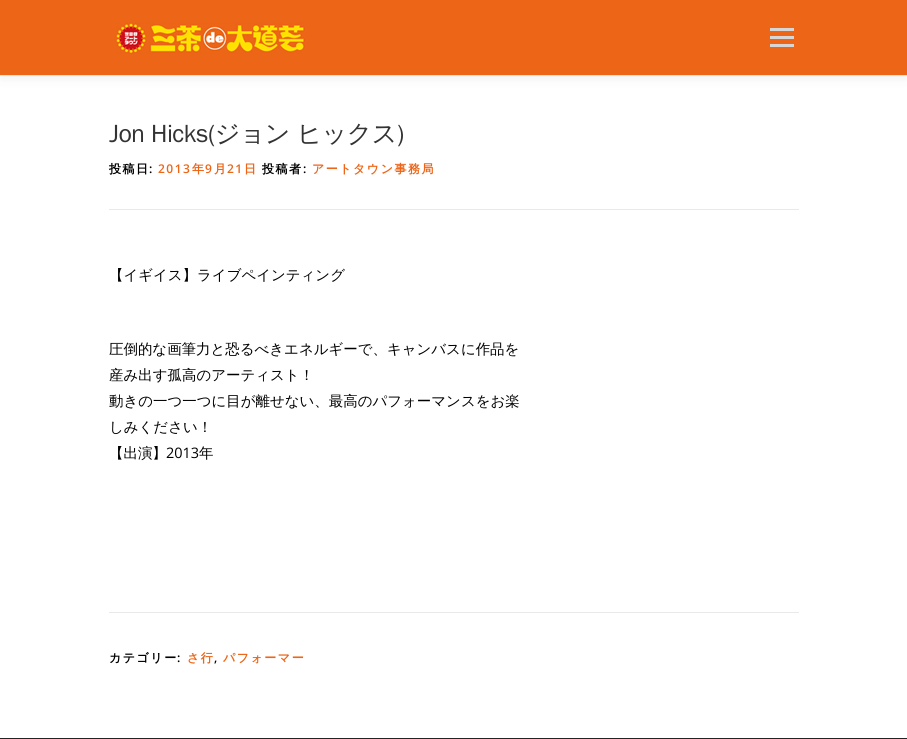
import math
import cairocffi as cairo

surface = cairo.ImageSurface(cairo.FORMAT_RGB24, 907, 739)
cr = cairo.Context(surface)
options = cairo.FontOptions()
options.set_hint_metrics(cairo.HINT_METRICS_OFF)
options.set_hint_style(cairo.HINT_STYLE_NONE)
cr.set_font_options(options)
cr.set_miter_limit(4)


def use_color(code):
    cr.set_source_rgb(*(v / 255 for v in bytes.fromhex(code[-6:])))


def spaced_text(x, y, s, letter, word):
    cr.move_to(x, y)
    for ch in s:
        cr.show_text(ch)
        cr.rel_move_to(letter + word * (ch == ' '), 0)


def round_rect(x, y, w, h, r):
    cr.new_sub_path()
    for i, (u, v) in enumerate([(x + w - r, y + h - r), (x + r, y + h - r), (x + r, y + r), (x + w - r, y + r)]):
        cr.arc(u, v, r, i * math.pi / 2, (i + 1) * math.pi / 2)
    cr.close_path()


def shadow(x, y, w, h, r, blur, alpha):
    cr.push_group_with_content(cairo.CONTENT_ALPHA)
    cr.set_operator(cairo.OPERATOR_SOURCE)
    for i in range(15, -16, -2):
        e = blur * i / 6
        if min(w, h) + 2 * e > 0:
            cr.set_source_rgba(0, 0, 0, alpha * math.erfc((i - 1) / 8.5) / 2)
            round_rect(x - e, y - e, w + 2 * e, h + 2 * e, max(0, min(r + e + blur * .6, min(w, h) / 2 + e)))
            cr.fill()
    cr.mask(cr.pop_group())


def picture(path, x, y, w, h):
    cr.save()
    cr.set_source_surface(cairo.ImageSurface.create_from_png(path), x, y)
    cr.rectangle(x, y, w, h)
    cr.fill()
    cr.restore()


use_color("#ffffff")
cr.paint()
use_color("#e9e9e9")
cr.rectangle(0, 75, 907, 1)
cr.fill()
use_color("#323232")
shadow(0, 5, 907, 75, 0, 5, 0.06)
use_color("#ed6517")
cr.rectangle(0, 0, 907, 75)
cr.fill()
picture("img1.png", 115, 22, 190, 32)
use_color("#d6d6d6")
cr.rectangle(770, 36, 24, 3)
cr.fill()
cr.rectangle(770, 28, 24, 3)
cr.fill()
cr.rectangle(770, 44, 24, 3)
cr.fill()
cr.select_font_face("WenQuanYi Zen Hei Medium")
cr.set_font_size(25)
use_color("#333333")
spaced_text(109, 142, "Jon Hicks(ジョン ヒックス)", -0.6, 0)
use_color("#e9e9e9")
cr.rectangle(109, 209, 690, 1)
cr.fill()
cr.select_font_face("WenQuanYi Zen Hei", cairo.FONT_SLANT_NORMAL, cairo.FONT_WEIGHT_BOLD)
cr.set_font_size(12)
use_color("#000000")
spaced_text(109, 173, "投稿日", 1.5, 0)
cr.select_font_face("Open Sans SemiBold")
spaced_text(149, 173, ":", 1.5, 0)
use_color("#ed6517")
spaced_text(158, 173, "2013", 1.5, 0)
cr.select_font_face("WenQuanYi Zen Hei", cairo.FONT_SLANT_NORMAL, cairo.FONT_WEIGHT_BOLD)
spaced_text(192, 173, "年", 1.5, 0)
cr.select_font_face("Open Sans SemiBold")
spaced_text(205, 173, "9", 1.5, 0)
cr.select_font_face("WenQuanYi Zen Hei", cairo.FONT_SLANT_NORMAL, cairo.FONT_WEIGHT_BOLD)
spaced_text(214, 173, "月", 1.5, 0)
cr.select_font_face("Open Sans SemiBold")
spaced_text(227, 173, "21", 1.5, 0)
cr.select_font_face("WenQuanYi Zen Hei", cairo.FONT_SLANT_NORMAL, cairo.FONT_WEIGHT_BOLD)
spaced_text(244, 173, "日", 1.5, 0)
use_color("#000000")
spaced_text(262, 173, "投稿者", 1.5, 0)
cr.select_font_face("Open Sans SemiBold")
spaced_text(303, 173, ":", 1.5, 0)
cr.select_font_face("WenQuanYi Zen Hei", cairo.FONT_SLANT_NORMAL, cairo.FONT_WEIGHT_BOLD)
use_color("#ed6517")
spaced_text(312, 173, "アートタウン事務局", 1.5, 0)
cr.select_font_face("WenQuanYi Zen Hei Medium")
cr.set_font_size(14.45)
use_color("#000000")
cr.move_to(109, 280)
cr.show_text("【イギイス】ライブペインティング")
cr.move_to(109, 354)
cr.show_text("圧倒的な画筆力と恐るべきエネルギーで、キャンバスに作品を")
cr.move_to(109, 380)
cr.show_text("産み出す孤高のアーティスト！")
cr.move_to(109, 406)
cr.show_text("動きの一つ一つに目が離せない、最高のパフォーマンスをお楽")
cr.move_to(109, 432)
cr.show_text("しみください！")
cr.move_to(109, 458)
cr.show_text("【出演】")
cr.select_font_face("Open Sans")
cr.move_to(166, 458)
cr.show_text("2013")
cr.select_font_face("WenQuanYi Zen Hei Medium")
cr.move_to(199, 458)
cr.show_text("年")
use_color("#e9e9e9")
cr.rectangle(109, 612, 690, 1)
cr.fill()
cr.select_font_face("WenQuanYi Zen Hei", cairo.FONT_SLANT_NORMAL, cairo.FONT_WEIGHT_BOLD)
cr.set_font_size(12)
use_color("#000000")
spaced_text(109, 662, "カテゴリー", 1.5, 0)
cr.select_font_face("Open Sans SemiBold")
spaced_text(177, 662, ":", 1.5, 0)
cr.select_font_face("WenQuanYi Zen Hei", cairo.FONT_SLANT_NORMAL, cairo.FONT_WEIGHT_BOLD)
use_color("#ed6517")
spaced_text(187, 662, "さ行", 1.5, 0)
cr.select_font_face("Open Sans SemiBold")
use_color("#000000")
spaced_text(214, 662, ",", 1.5, 0)
cr.select_font_face("WenQuanYi Zen Hei", cairo.FONT_SLANT_NORMAL, cairo.FONT_WEIGHT_BOLD)
use_color("#ed6517")
spaced_text(223, 662, "パフォーマー", 1.5, 0)
use_color("#232323")
cr.rectangle(0, 738, 907, 1)
cr.fill()
surface.write_to_png("result.png")
